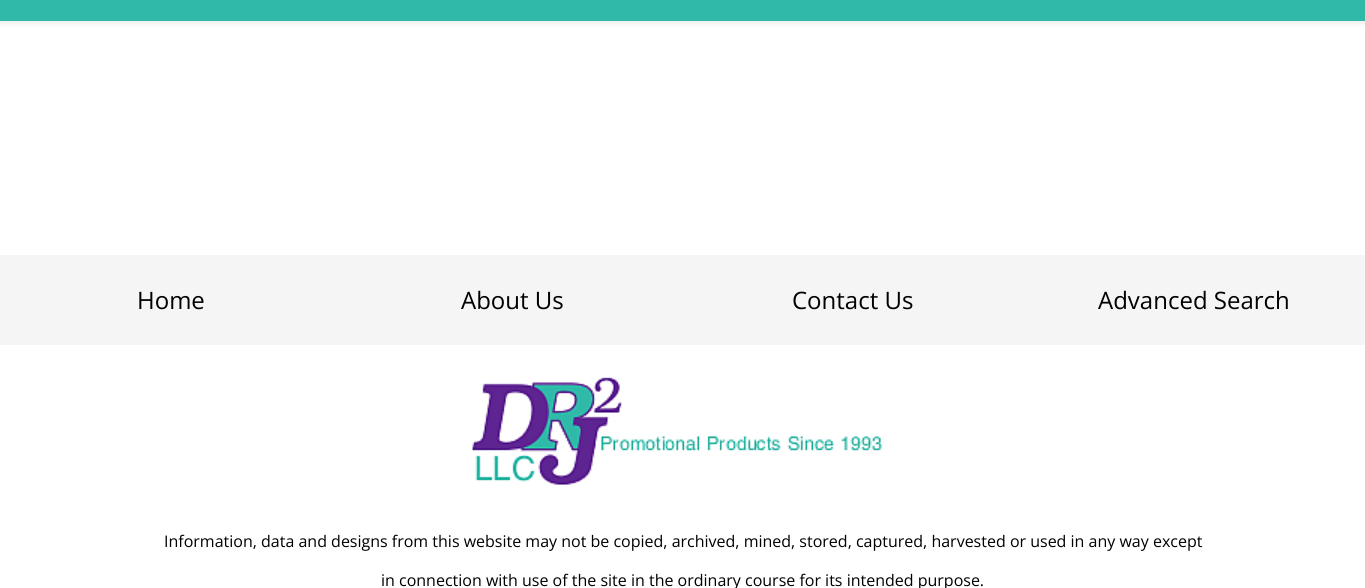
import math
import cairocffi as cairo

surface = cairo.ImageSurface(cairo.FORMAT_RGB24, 1365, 588)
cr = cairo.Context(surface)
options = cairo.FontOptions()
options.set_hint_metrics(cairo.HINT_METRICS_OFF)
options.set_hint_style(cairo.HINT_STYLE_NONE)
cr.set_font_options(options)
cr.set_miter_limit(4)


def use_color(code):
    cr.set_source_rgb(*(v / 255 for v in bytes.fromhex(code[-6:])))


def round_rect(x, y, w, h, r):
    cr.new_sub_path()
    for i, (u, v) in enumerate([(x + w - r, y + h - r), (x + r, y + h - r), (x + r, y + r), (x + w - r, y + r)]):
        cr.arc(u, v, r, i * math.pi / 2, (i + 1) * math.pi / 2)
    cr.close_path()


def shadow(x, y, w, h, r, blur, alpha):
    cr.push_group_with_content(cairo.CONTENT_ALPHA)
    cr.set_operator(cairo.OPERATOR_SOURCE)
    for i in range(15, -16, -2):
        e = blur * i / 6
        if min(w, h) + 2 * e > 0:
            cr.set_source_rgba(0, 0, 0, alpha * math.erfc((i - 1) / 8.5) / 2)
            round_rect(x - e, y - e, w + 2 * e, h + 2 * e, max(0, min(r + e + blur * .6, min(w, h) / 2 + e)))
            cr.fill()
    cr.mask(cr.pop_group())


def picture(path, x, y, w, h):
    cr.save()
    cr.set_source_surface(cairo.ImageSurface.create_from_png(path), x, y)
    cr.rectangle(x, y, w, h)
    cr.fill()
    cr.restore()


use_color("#ffffff")
cr.paint()
use_color("#000000")
shadow(0, -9, 1365, 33, 0, 3, 0.07)
use_color("#30b9a9")
cr.rectangle(0, 0, 1365, 21)
cr.fill()
use_color("#f5f5f5")
cr.rectangle(0, 255, 1365, 90)
cr.fill()
cr.select_font_face("Open Sans")
cr.set_font_size(24)
use_color("#000000")
cr.move_to(137, 309)
cr.show_text("Home")
cr.move_to(461, 309)
cr.show_text("About Us")
cr.move_to(792, 309)
cr.show_text("Contact Us")
cr.move_to(1098, 309)
cr.show_text("Advanced Search")
picture("img1.png", 472, 377, 411, 108)
cr.set_font_size(16)
cr.move_to(164, 547)
cr.show_text("Information, data and designs from this website may not be copied, archived, mined, stored, captured, harvested or used in any way except")
cr.move_to(381, 586)
cr.show_text("in connection with use of the site in the ordinary course for its intended purpose.")
surface.write_to_png("result.png")
